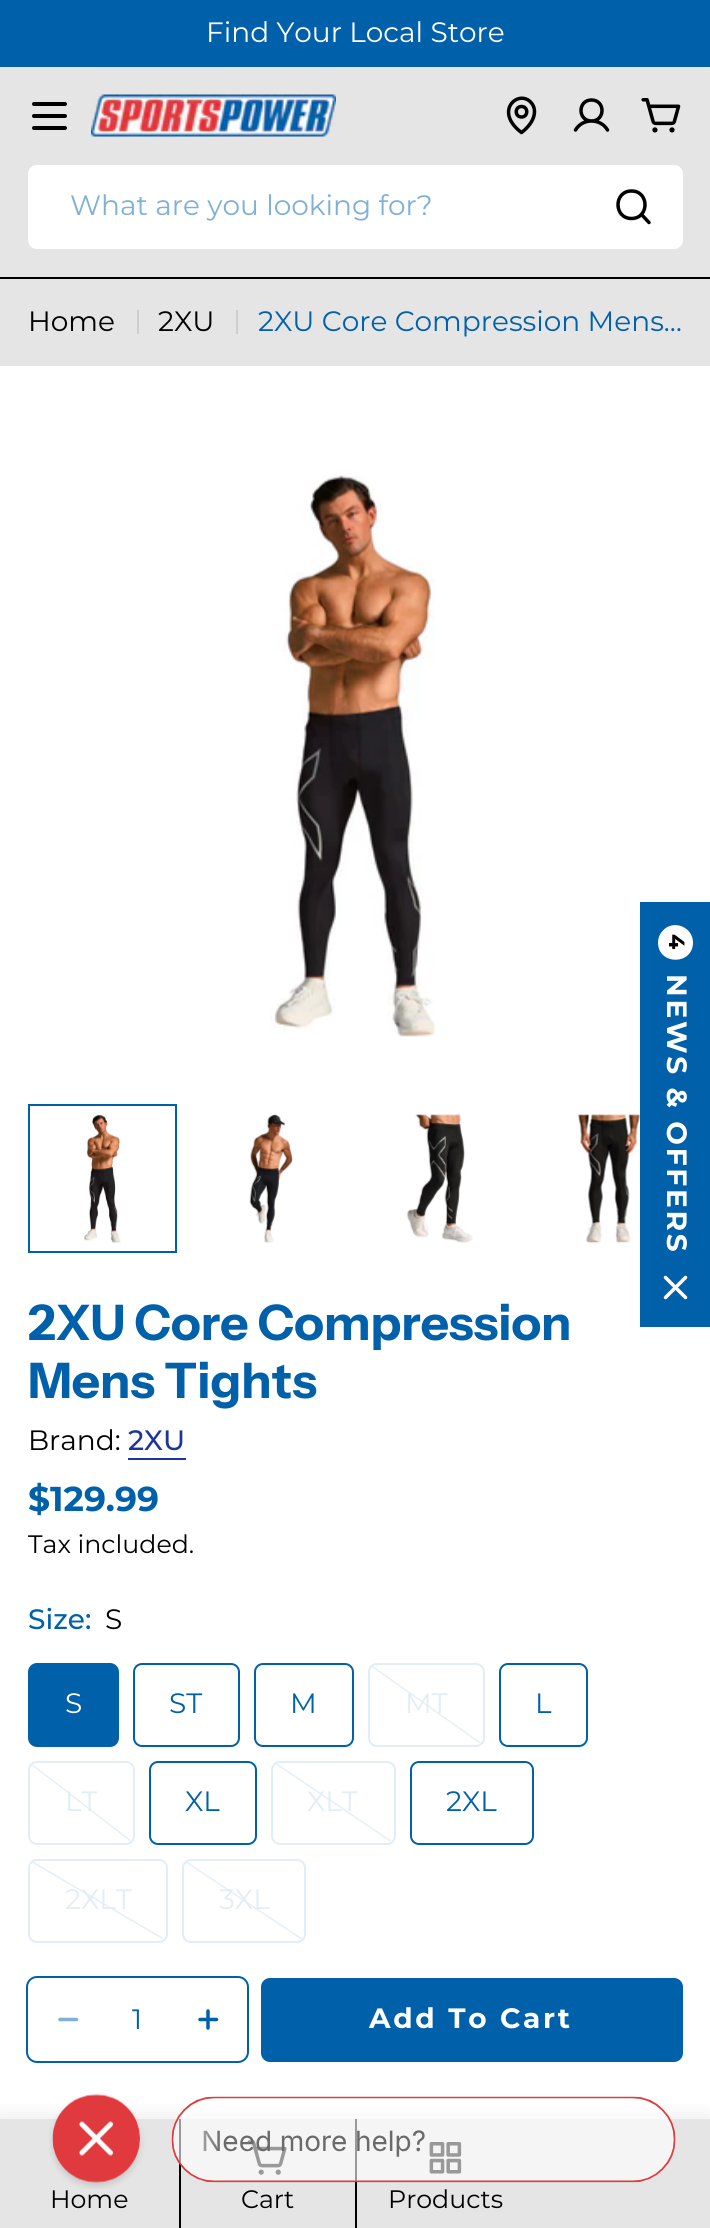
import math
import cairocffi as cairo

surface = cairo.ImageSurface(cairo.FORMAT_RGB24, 710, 2228)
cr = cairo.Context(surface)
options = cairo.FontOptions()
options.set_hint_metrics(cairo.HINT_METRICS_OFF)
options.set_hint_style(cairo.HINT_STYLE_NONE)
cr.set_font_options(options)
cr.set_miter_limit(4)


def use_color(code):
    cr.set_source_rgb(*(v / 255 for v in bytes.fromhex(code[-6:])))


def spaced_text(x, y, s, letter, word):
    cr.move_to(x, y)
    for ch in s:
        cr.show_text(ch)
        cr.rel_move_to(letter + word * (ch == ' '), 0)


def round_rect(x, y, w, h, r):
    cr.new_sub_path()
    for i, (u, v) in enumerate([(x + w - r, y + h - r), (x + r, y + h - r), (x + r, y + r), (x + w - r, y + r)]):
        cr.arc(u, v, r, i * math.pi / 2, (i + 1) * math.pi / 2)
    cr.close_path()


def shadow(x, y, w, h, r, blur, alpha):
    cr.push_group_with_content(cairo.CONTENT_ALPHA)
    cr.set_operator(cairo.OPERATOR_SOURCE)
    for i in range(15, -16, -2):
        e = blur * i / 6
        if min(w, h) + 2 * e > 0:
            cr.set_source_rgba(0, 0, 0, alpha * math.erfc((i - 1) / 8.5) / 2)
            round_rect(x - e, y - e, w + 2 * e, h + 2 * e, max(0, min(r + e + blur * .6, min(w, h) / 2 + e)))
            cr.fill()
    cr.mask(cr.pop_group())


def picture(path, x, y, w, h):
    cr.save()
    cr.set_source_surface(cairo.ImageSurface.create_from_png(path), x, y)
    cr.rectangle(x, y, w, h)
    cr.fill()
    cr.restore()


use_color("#e5e5e5")
cr.paint()
use_color("#0060aa")
cr.rectangle(0, 0, 710, 67)
cr.fill()
cr.select_font_face("Montserrat")
cr.set_font_size(28)
use_color("#ffffff")
cr.move_to(206, 42)
cr.show_text("Find Your Local Store")
use_color("#000000")
round_rect(32, 114, 35, 4, 2)
cr.fill()
round_rect(32, 102, 35, 4, 2)
cr.fill()
round_rect(32, 126, 35, 4, 2)
cr.fill()
picture("img1.png", 91, 94, 245, 43)
cr.new_path()
cr.move_to(521.5, 117)
cr.curve_to(528.5, 117, 528.5, 106.5, 521.5, 106.5)
cr.curve_to(514.5, 106.5, 514.5, 117, 521.5, 117)
cr.close_path()
cr.move_to(534.5, 111.5)
cr.curve_to(534.5, 123.5, 521.5, 132.5, 521.5, 132.5)
cr.curve_to(516, 128.5, 510.5, 122.5, 509, 116)
cr.curve_to(505.5, 101.5, 522.5, 92, 531.5, 103)
cr.curve_to(533.5, 105.5, 534.5, 108.5, 534.5, 111.5)
cr.close_path()
cr.set_line_width(3.5)
cr.set_line_cap(cairo.LINE_CAP_ROUND)
cr.set_line_join(cairo.LINE_JOIN_ROUND)
cr.stroke()
cr.new_path()
cr.move_to(591.5, 121)
cr.curve_to(605.5, 121, 605.5, 100, 591.5, 100)
cr.curve_to(577.5, 100, 577.5, 121, 591.5, 121)
cr.close_path()
cr.move_to(575.5, 130)
cr.curve_to(582.5, 118, 600.5, 118, 607.5, 130)
cr.stroke()
picture("img2.png", 641, 98, 40, 35)
use_color("#ffffff")
round_rect(28, 165, 655, 84, 9)
cr.fill()
use_color("#80b0d5")
cr.move_to(70, 215)
cr.show_text("What are you looking for?")
cr.new_path()
cr.move_to(631.5, 218.5)
cr.curve_to(649.5, 218.5, 649.5, 191, 631.5, 191)
cr.curve_to(613.5, 191, 613.5, 218.5, 631.5, 218.5)
cr.close_path()
cr.move_to(641.5, 214.5)
cr.line_to(649, 222.5)
use_color("#000000")
cr.stroke()
cr.rectangle(0, 277, 710, 2)
cr.fill()
cr.move_to(28, 331)
cr.show_text("Home")
use_color("#cecece")
cr.rectangle(137, 310, 2, 24)
cr.fill()
use_color("#000000")
cr.move_to(158, 331)
cr.show_text("2XU")
use_color("#cecece")
cr.rectangle(236, 310, 2, 24)
cr.fill()
use_color("#0060aa")
cr.move_to(258, 331)
cr.show_text("2XU Core Compression Mens…")
use_color("#ffffff")
cr.rectangle(0, 366, 710, 1753)
cr.fill()
picture("img3.png", 270, 475, 166, 562)
picture("img4.png", 83, 1114, 38, 130)
cr.rectangle(29, 1105, 147, 147)
use_color("#0060aa")
cr.set_line_width(2)
cr.set_line_cap(cairo.LINE_CAP_BUTT)
cr.set_line_join(cairo.LINE_JOIN_MITER)
cr.stroke()
picture("img5.png", 249, 1114, 44, 130)
picture("img6.png", 406, 1114, 67, 129)
picture("img7.png", 577, 1114, 63, 130)
cr.select_font_face("Instrument Sans", cairo.FONT_SLANT_NORMAL, cairo.FONT_WEIGHT_BOLD)
cr.set_font_size(49)
cr.move_to(28, 1340)
cr.show_text("2XU Core Compression")
cr.move_to(28, 1398)
cr.show_text("Mens Tights")
cr.select_font_face("Montserrat")
cr.set_font_size(28)
use_color("#000000")
cr.move_to(28, 1450)
cr.show_text("Brand:")
cr.select_font_face("Montserrat Medium")
use_color("#1d349a")
cr.move_to(128, 1450)
cr.show_text("2XU")
cr.rectangle(128, 1458, 58, 2)
cr.fill()
cr.select_font_face("Montserrat", cairo.FONT_SLANT_NORMAL, cairo.FONT_WEIGHT_BOLD)
cr.set_font_size(34.5)
use_color("#0060aa")
cr.move_to(28, 1511)
cr.show_text("$129.99")
cr.select_font_face("Montserrat")
cr.set_font_size(25.25)
use_color("#000000")
cr.move_to(28, 1553)
cr.show_text("Tax included.")
cr.select_font_face("Montserrat Medium")
cr.set_font_size(28)
use_color("#0060aa")
cr.move_to(28, 1629)
cr.show_text("Size:")
cr.select_font_face("Montserrat")
use_color("#000000")
cr.move_to(105, 1629)
cr.show_text("S")
use_color("#0060aa")
round_rect(29, 1664, 89, 82, 8)
cr.fill_preserve()
cr.stroke()
use_color("#ffffff")
cr.move_to(65, 1713)
cr.show_text("S")
round_rect(134, 1664, 105, 82, 8)
use_color("#0060aa")
cr.stroke()
cr.move_to(169, 1713)
cr.show_text("ST")
round_rect(255, 1664, 98, 82, 8)
cr.stroke()
cr.move_to(290, 1713)
cr.show_text("M")
round_rect(369, 1664, 115, 82, 8)
use_color("#e2edf5")
cr.stroke()
gradient = cairo.LinearGradient(464, 1651, 388, 1758)
gradient.add_color_stop_rgba(0.49, 0.886, 0.929, 0.961, 0)
gradient.add_color_stop_rgba(0.5, 0.886, 0.929, 0.961, 1)
gradient.add_color_stop_rgba(0.51, 0.886, 0.929, 0.961, 0)
cr.set_source(gradient)
round_rect(369, 1664, 114, 81, 9)
cr.fill()
use_color("#e2edf5")
cr.move_to(405, 1713)
cr.show_text("MT")
round_rect(500, 1664, 87, 82, 8)
use_color("#0060aa")
cr.stroke()
cr.move_to(535, 1713)
cr.show_text("L")
round_rect(29, 1762, 105, 82, 8)
use_color("#e2edf5")
cr.stroke()
gradient = cairo.LinearGradient(120, 1752, 42, 1853)
gradient.add_color_stop_rgba(0.49, 0.886, 0.929, 0.961, 0)
gradient.add_color_stop_rgba(0.5, 0.886, 0.929, 0.961, 1)
gradient.add_color_stop_rgba(0.51, 0.886, 0.929, 0.961, 0)
cr.set_source(gradient)
round_rect(30, 1762, 103, 81, 9)
cr.fill()
use_color("#e2edf5")
cr.move_to(65, 1811)
cr.show_text("LT")
round_rect(150, 1762, 106, 82, 8)
use_color("#0060aa")
cr.stroke()
cr.move_to(185, 1811)
cr.show_text("XL")
round_rect(272, 1762, 123, 82, 8)
use_color("#e2edf5")
cr.stroke()
gradient = cairo.LinearGradient(371, 1747, 296, 1858)
gradient.add_color_stop_rgba(0.49, 0.886, 0.929, 0.961, 0)
gradient.add_color_stop_rgba(0.5, 0.886, 0.929, 0.961, 1)
gradient.add_color_stop_rgba(0.51, 0.886, 0.929, 0.961, 0)
cr.set_source(gradient)
round_rect(273, 1762, 121, 81, 9)
cr.fill()
use_color("#e2edf5")
cr.move_to(307, 1811)
cr.show_text("XLT")
round_rect(411, 1762, 122, 82, 8)
use_color("#0060aa")
cr.stroke()
cr.move_to(446, 1811)
cr.show_text("2XL")
round_rect(29, 1860, 138, 82, 8)
use_color("#e2edf5")
cr.stroke()
gradient = cairo.LinearGradient(133, 1841, 63, 1960)
gradient.add_color_stop_rgba(0.49, 0.886, 0.929, 0.961, 0)
gradient.add_color_stop_rgba(0.5, 0.886, 0.929, 0.961, 1)
gradient.add_color_stop_rgba(0.51, 0.886, 0.929, 0.961, 0)
cr.set_source(gradient)
round_rect(30, 1860, 136, 81, 9)
cr.fill()
use_color("#e2edf5")
cr.move_to(65, 1909)
cr.show_text("2XLT")
round_rect(183, 1860, 122, 82, 8)
cr.stroke()
gradient = cairo.LinearGradient(281, 1845, 207, 1956)
gradient.add_color_stop_rgba(0.49, 0.886, 0.929, 0.961, 0)
gradient.add_color_stop_rgba(0.5, 0.886, 0.929, 0.961, 1)
gradient.add_color_stop_rgba(0.51, 0.886, 0.929, 0.961, 0)
cr.set_source(gradient)
round_rect(184, 1860, 121, 81, 9)
cr.fill()
use_color("#e2edf5")
cr.move_to(219, 1909)
cr.show_text("3XL")
round_rect(27, 1977, 221, 85, 10)
use_color("#0060aa")
cr.stroke()
cr.new_path()
cr.move_to(60, 2019.5)
cr.line_to(76.5, 2019.5)
use_color("#80b0d5")
cr.set_line_width(3.5)
cr.set_line_cap(cairo.LINE_CAP_ROUND)
cr.set_line_join(cairo.LINE_JOIN_ROUND)
cr.stroke()
use_color("#0060aa")
cr.move_to(132, 2029)
cr.show_text("1")
cr.new_path()
cr.move_to(200, 2019.5)
cr.line_to(216.5, 2019.5)
cr.move_to(208, 2011)
cr.line_to(208, 2028)
cr.stroke()
round_rect(262, 1979, 420, 82, 8)
cr.fill_preserve()
cr.set_line_width(2)
cr.set_line_cap(cairo.LINE_CAP_BUTT)
cr.set_line_join(cairo.LINE_JOIN_MITER)
cr.stroke()
cr.select_font_face("Montserrat", cairo.FONT_SLANT_NORMAL, cairo.FONT_WEIGHT_BOLD)
use_color("#ffffff")
spaced_text(369, 2028, "Add To Cart", 2.75, 0)
use_color("#000000")
shadow(-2, 2116, 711, 110, 0, 9, 0.08)
use_color("#e5e5e5")
cr.rectangle(0, 2119, 710, 109)
cr.fill()
cr.select_font_face("Montserrat")
cr.set_font_size(25.25)
use_color("#000000")
cr.move_to(50, 2208)
cr.show_text("Home")
cr.rectangle(179, 2119, 2, 109)
cr.fill()
picture("img8.png", 247, 2140, 40, 35)
cr.move_to(241, 2208)
cr.show_text("Cart")
cr.rectangle(355, 2119, 2, 109)
cr.fill()
picture("img9.png", 429, 2142, 33, 32)
cr.move_to(388, 2208)
cr.show_text("Products")
use_color("#0060aa")
cr.rectangle(640, 902, 70, 425)
cr.fill()
use_color("#ffffff")
cr.new_path()
cr.move_to(693, 942.5)
cr.curve_to(693, 965.5, 658, 965.5, 658, 942.5)
cr.curve_to(658, 938.5, 659.5, 934, 662.5, 931)
cr.curve_to(672.5, 919, 693, 926.5, 693, 942.5)
cr.close_path()
cr.fill()
cr.select_font_face("Montserrat", cairo.FONT_SLANT_NORMAL, cairo.FONT_WEIGHT_BOLD)
cr.set_font_size(22)
use_color("#000000")
cr.save()
cr.translate(669, 934)
cr.rotate(90 * math.pi / 180)
spaced_text(0, 0, "4", 2.75, 0)
cr.restore()
cr.set_font_size(28)
use_color("#ffffff")
cr.save()
cr.translate(667, 974)
cr.rotate(90 * math.pi / 180)
spaced_text(0, 0, "NEWS & OFFERS", 2.75, 0)
cr.restore()
cr.new_path()
cr.move_to(685.5, 1297.5)
cr.line_to(665.5, 1277.5)
cr.move_to(665.5, 1297.5)
cr.line_to(685.5, 1277.5)
cr.set_line_width(3.5)
cr.set_line_cap(cairo.LINE_CAP_ROUND)
cr.set_line_join(cairo.LINE_JOIN_ROUND)
cr.stroke()
picture("img10.png", 49, 2094, 627, 95)
surface.write_to_png("result.png")
